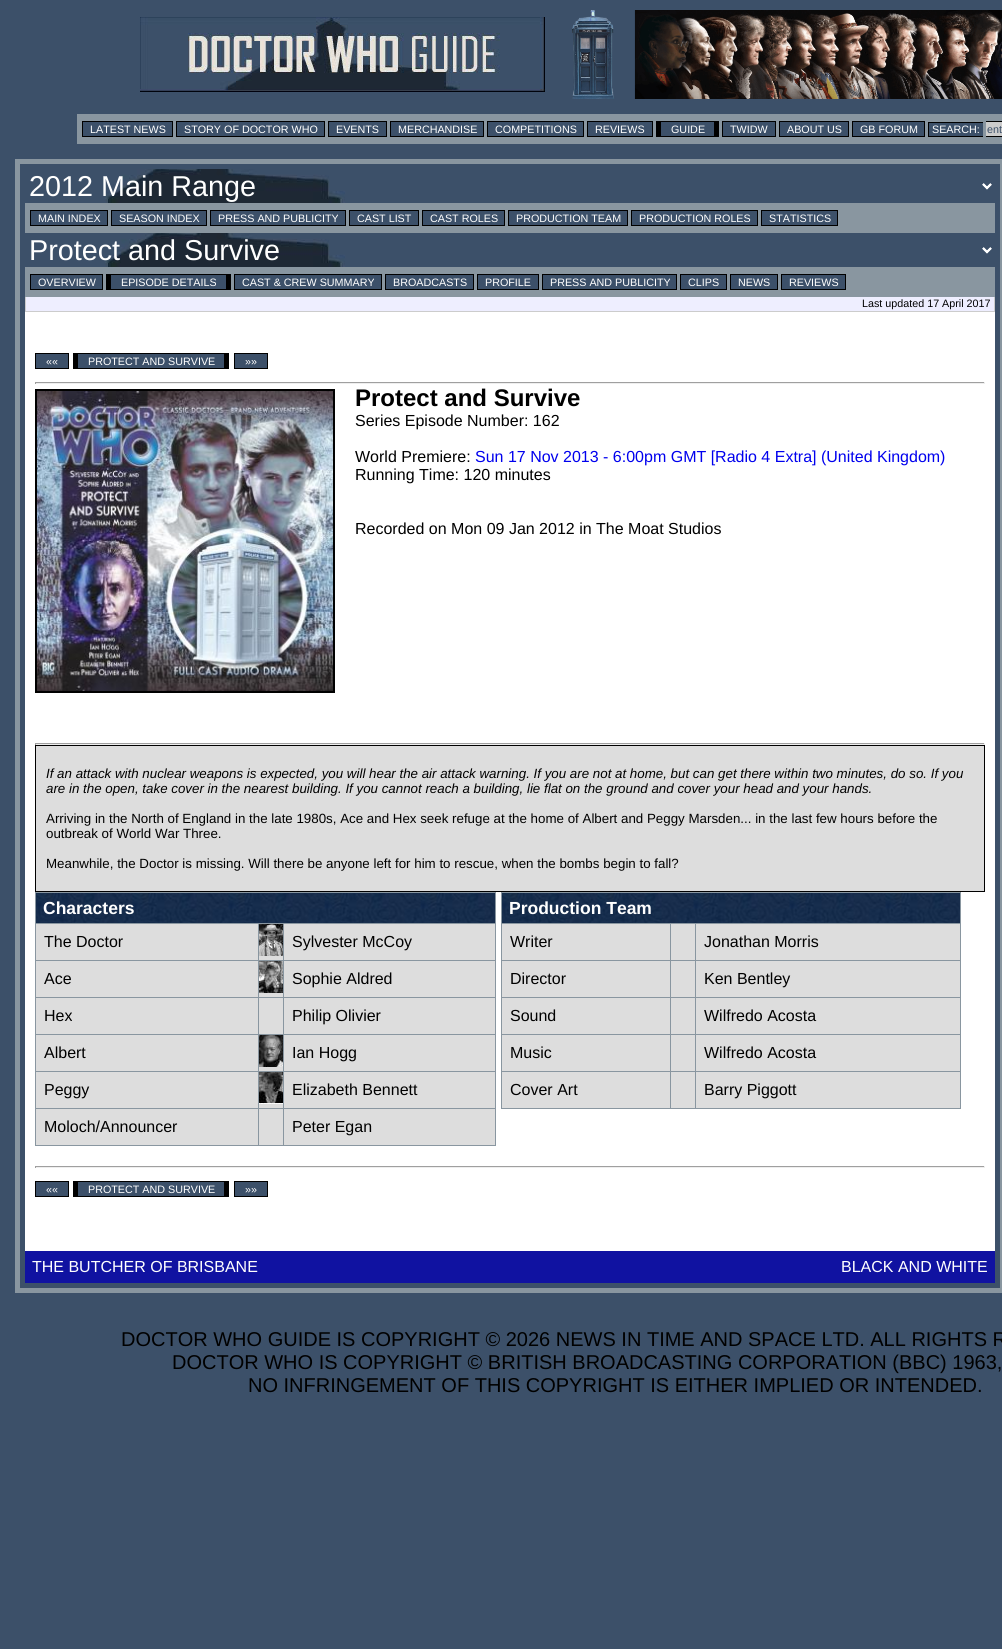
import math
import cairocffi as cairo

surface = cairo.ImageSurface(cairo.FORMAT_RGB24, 1002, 1649)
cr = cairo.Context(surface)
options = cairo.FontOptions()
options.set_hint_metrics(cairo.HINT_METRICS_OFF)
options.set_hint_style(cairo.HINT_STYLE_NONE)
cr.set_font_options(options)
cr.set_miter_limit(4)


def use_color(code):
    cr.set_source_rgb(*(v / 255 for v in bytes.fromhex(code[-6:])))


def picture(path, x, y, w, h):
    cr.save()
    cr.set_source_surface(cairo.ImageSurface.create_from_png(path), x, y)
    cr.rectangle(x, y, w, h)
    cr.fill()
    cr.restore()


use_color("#3c5069")
cr.paint()
picture("img1.png", 140, 17, 405, 75)
picture("img2.png", 572, 10, 430, 89)
use_color("#8996a0")
cr.rectangle(77, 114, 925, 30)
cr.fill()
use_color("#3c5069")
cr.rectangle(82.5, 121.5, 90, 15)
cr.fill_preserve()
use_color("#000000")
cr.set_line_width(1)
cr.stroke()
cr.select_font_face("Liberation Sans")
cr.set_font_size(10.75)
use_color("#ffffff")
cr.move_to(90, 133)
cr.show_text("LATEST NEWS")
use_color("#3c5069")
cr.rectangle(176.5, 121.5, 148, 15)
cr.fill_preserve()
use_color("#000000")
cr.stroke()
use_color("#ffffff")
cr.move_to(184, 133)
cr.show_text("STORY OF DOCTOR WHO")
use_color("#3c5069")
cr.rectangle(328.5, 121.5, 58, 15)
cr.fill_preserve()
use_color("#000000")
cr.stroke()
use_color("#ffffff")
cr.move_to(336, 133)
cr.show_text("EVENTS")
use_color("#3c5069")
cr.rectangle(390.5, 121.5, 93, 15)
cr.fill_preserve()
use_color("#000000")
cr.stroke()
use_color("#ffffff")
cr.move_to(398, 133)
cr.show_text("MERCHANDISE")
use_color("#3c5069")
cr.rectangle(487.5, 121.5, 96, 15)
cr.fill_preserve()
use_color("#000000")
cr.stroke()
use_color("#ffffff")
cr.move_to(495, 133)
cr.show_text("COMPETITIONS")
use_color("#3c5069")
cr.rectangle(587.5, 121.5, 65, 15)
cr.fill_preserve()
use_color("#000000")
cr.stroke()
use_color("#ffffff")
cr.move_to(595, 133)
cr.show_text("REVIEWS")
use_color("#3c5069")
cr.rectangle(661, 122, 53, 14)
cr.fill()
use_color("#ffffff")
cr.move_to(671, 133)
cr.show_text("GUIDE")
use_color("#000000")
cr.rectangle(656, 121, 63, 1)
cr.fill()
cr.rectangle(714, 121, 5, 16)
cr.fill()
cr.rectangle(656, 136, 63, 1)
cr.fill()
cr.rectangle(656, 121, 5, 16)
cr.fill()
use_color("#3c5069")
cr.rectangle(722.5, 121.5, 53, 15)
cr.fill_preserve()
use_color("#000000")
cr.stroke()
use_color("#ffffff")
cr.move_to(730, 133)
cr.show_text("TWIDW")
use_color("#3c5069")
cr.rectangle(779.5, 121.5, 69, 15)
cr.fill_preserve()
use_color("#000000")
cr.stroke()
use_color("#ffffff")
cr.move_to(787, 133)
cr.show_text("ABOUT US")
use_color("#3c5069")
cr.rectangle(852.5, 121.5, 72, 15)
cr.fill_preserve()
use_color("#000000")
cr.stroke()
use_color("#ffffff")
cr.move_to(860, 133)
cr.show_text("GB FORUM")
use_color("#3c5069")
cr.rectangle(929, 123, 54, 13)
cr.fill()
use_color("#000000")
cr.rectangle(928, 122, 55, 1)
cr.fill()
cr.rectangle(928, 136, 55, 1)
cr.fill()
cr.rectangle(928, 122, 1, 15)
cr.fill()
use_color("#ffffff")
cr.move_to(932, 133)
cr.show_text("SEARCH:")
use_color("#cccccc")
cr.rectangle(986, 122, 16, 14)
cr.fill()
use_color("#000000")
cr.rectangle(986, 121, 16, 1)
cr.fill()
cr.rectangle(986, 136, 16, 1)
cr.fill()
use_color("#3c5069")
cr.move_to(987, 133)
cr.show_text("ent")
use_color("#8996a0")
cr.rectangle(15, 159, 987, 1134)
cr.fill()
use_color("#ffffff")
cr.rectangle(25, 312, 970, 939)
cr.fill()
cr.rectangle(22.5, 166.5, 975, 1119)
use_color("#3c5069")
cr.set_line_width(5)
cr.stroke()
picture("img3.png", 25, 169, 970, 34)
cr.new_path()
cr.move_to(983, 184)
cr.line_to(987, 188)
cr.line_to(991, 184)
use_color("#ffffff")
cr.set_line_width(2)
cr.stroke()
cr.set_font_size(28.75)
cr.move_to(29, 196)
cr.show_text("2012 Main Range")
use_color("#3c5069")
cr.rectangle(30.5, 210.5, 77, 15)
cr.fill_preserve()
use_color("#000000")
cr.set_line_width(1)
cr.stroke()
cr.set_font_size(10.75)
use_color("#ffffff")
cr.move_to(38, 222)
cr.show_text("MAIN INDEX")
use_color("#3c5069")
cr.rectangle(111.5, 210.5, 95, 15)
cr.fill_preserve()
use_color("#000000")
cr.stroke()
use_color("#ffffff")
cr.move_to(119, 222)
cr.show_text("SEASON INDEX")
use_color("#3c5069")
cr.rectangle(210.5, 210.5, 135, 15)
cr.fill_preserve()
use_color("#000000")
cr.stroke()
use_color("#ffffff")
cr.move_to(218, 222)
cr.show_text("PRESS AND PUBLICITY")
use_color("#3c5069")
cr.rectangle(349.5, 210.5, 69, 15)
cr.fill_preserve()
use_color("#000000")
cr.stroke()
use_color("#ffffff")
cr.move_to(357, 222)
cr.show_text("CAST LIST")
use_color("#3c5069")
cr.rectangle(422.5, 210.5, 82, 15)
cr.fill_preserve()
use_color("#000000")
cr.stroke()
use_color("#ffffff")
cr.move_to(430, 222)
cr.show_text("CAST ROLES")
use_color("#3c5069")
cr.rectangle(508.5, 210.5, 119, 15)
cr.fill_preserve()
use_color("#000000")
cr.stroke()
use_color("#ffffff")
cr.move_to(516, 222)
cr.show_text("PRODUCTION TEAM")
use_color("#3c5069")
cr.rectangle(631.5, 210.5, 126, 15)
cr.fill_preserve()
use_color("#000000")
cr.stroke()
use_color("#ffffff")
cr.move_to(639, 222)
cr.show_text("PRODUCTION ROLES")
use_color("#3c5069")
cr.rectangle(761.5, 210.5, 76, 15)
cr.fill_preserve()
use_color("#000000")
cr.stroke()
use_color("#ffffff")
cr.move_to(769, 222)
cr.show_text("STATISTICS")
picture("img3.png", 25, 233, 970, 34)
cr.new_path()
cr.move_to(983, 248)
cr.line_to(987, 252)
cr.line_to(991, 248)
cr.set_line_width(2)
cr.stroke()
cr.set_font_size(28.75)
cr.move_to(29, 260)
cr.show_text("Protect and Survive")
use_color("#3c5069")
cr.rectangle(30.5, 274.5, 72, 15)
cr.fill_preserve()
use_color("#000000")
cr.set_line_width(1)
cr.stroke()
cr.set_font_size(10.75)
use_color("#ffffff")
cr.move_to(38, 286)
cr.show_text("OVERVIEW")
use_color("#3c5069")
cr.rectangle(111, 275, 115, 14)
cr.fill()
use_color("#ffffff")
cr.move_to(121, 286)
cr.show_text("EPISODE DETAILS")
use_color("#000000")
cr.rectangle(106, 274, 125, 1)
cr.fill()
cr.rectangle(226, 274, 5, 16)
cr.fill()
cr.rectangle(106, 289, 125, 1)
cr.fill()
cr.rectangle(106, 274, 5, 16)
cr.fill()
use_color("#3c5069")
cr.rectangle(234.5, 274.5, 147, 15)
cr.fill_preserve()
use_color("#000000")
cr.stroke()
use_color("#ffffff")
cr.move_to(242, 286)
cr.show_text("CAST & CREW SUMMARY")
use_color("#3c5069")
cr.rectangle(385.5, 274.5, 88, 15)
cr.fill_preserve()
use_color("#000000")
cr.stroke()
use_color("#ffffff")
cr.move_to(393, 286)
cr.show_text("BROADCASTS")
use_color("#3c5069")
cr.rectangle(477.5, 274.5, 61, 15)
cr.fill_preserve()
use_color("#000000")
cr.stroke()
use_color("#ffffff")
cr.move_to(485, 286)
cr.show_text("PROFILE")
use_color("#3c5069")
cr.rectangle(542.5, 274.5, 134, 15)
cr.fill_preserve()
use_color("#000000")
cr.stroke()
use_color("#ffffff")
cr.move_to(550, 286)
cr.show_text("PRESS AND PUBLICITY")
use_color("#3c5069")
cr.rectangle(680.5, 274.5, 46, 15)
cr.fill_preserve()
use_color("#000000")
cr.stroke()
use_color("#ffffff")
cr.move_to(688, 286)
cr.show_text("CLIPS")
use_color("#3c5069")
cr.rectangle(730.5, 274.5, 47, 15)
cr.fill_preserve()
use_color("#000000")
cr.stroke()
use_color("#ffffff")
cr.move_to(738, 286)
cr.show_text("NEWS")
use_color("#3c5069")
cr.rectangle(781.5, 274.5, 64, 15)
cr.fill_preserve()
use_color("#000000")
cr.stroke()
use_color("#ffffff")
cr.move_to(789, 286)
cr.show_text("REVIEWS")
use_color("#eeeeff")
cr.rectangle(26, 297, 968, 14)
cr.fill()
use_color("#cccccc")
cr.rectangle(994, 297, 1, 15)
cr.fill()
cr.rectangle(25, 311, 970, 1)
cr.fill()
cr.rectangle(25, 297, 1, 15)
cr.fill()
use_color("#000000")
cr.move_to(862, 307)
cr.show_text("Last updated 17 April 2017")
use_color("#3c5069")
cr.rectangle(35.5, 353.5, 33, 15)
cr.fill_preserve()
use_color("#000000")
cr.stroke()
use_color("#ffffff")
cr.move_to(46, 365)
cr.show_text("««")
use_color("#3c5069")
cr.rectangle(78, 354, 146, 14)
cr.fill()
use_color("#ffffff")
cr.move_to(88, 365)
cr.show_text("PROTECT AND SURVIVE")
use_color("#000000")
cr.rectangle(73, 353, 156, 1)
cr.fill()
cr.rectangle(224, 353, 5, 16)
cr.fill()
cr.rectangle(73, 368, 156, 1)
cr.fill()
cr.rectangle(73, 353, 5, 16)
cr.fill()
use_color("#3c5069")
cr.rectangle(234.5, 353.5, 33, 15)
cr.fill_preserve()
use_color("#000000")
cr.stroke()
use_color("#ffffff")
cr.move_to(245, 365)
cr.show_text("»»")
use_color("#9f9f9f")
cr.rectangle(35, 382, 950, 1)
cr.fill()
use_color("#eeeeee")
cr.rectangle(984, 382, 1, 2)
cr.fill()
cr.rectangle(35, 383, 950, 1)
cr.fill()
use_color("#9f9f9f")
cr.rectangle(35, 382, 1, 2)
cr.fill()
cr.rectangle(36, 390, 298, 302)
use_color("#000000")
cr.set_line_width(2)
cr.stroke()
picture("img4.png", 37, 391, 296, 300)
cr.select_font_face("Liberation Sans", cairo.FONT_SLANT_NORMAL, cairo.FONT_WEIGHT_BOLD)
cr.set_font_size(24)
cr.move_to(355, 406)
cr.show_text("Protect and Survive")
cr.select_font_face("Liberation Sans")
cr.set_font_size(16)
cr.move_to(355, 426)
cr.show_text("Series Episode Number: 162")
cr.move_to(355, 462)
cr.show_text("World Premiere:")
use_color("#0000ee")
cr.move_to(475, 462)
cr.show_text("Sun 17 Nov 2013 - 6:00pm GMT [Radio 4 Extra] (United Kingdom)")
use_color("#000000")
cr.move_to(355, 480)
cr.show_text("Running Time: 120 minutes")
cr.move_to(355, 534)
cr.show_text("Recorded on Mon 09 Jan 2012 in The Moat Studios")
use_color("#9f9f9f")
cr.rectangle(35, 743, 950, 1)
cr.fill()
use_color("#eeeeee")
cr.rectangle(984, 743, 1, 2)
cr.fill()
cr.rectangle(35, 744, 950, 1)
cr.fill()
use_color("#9f9f9f")
cr.rectangle(35, 743, 1, 2)
cr.fill()
use_color("#dddddd")
cr.rectangle(35.5, 745.5, 949, 146)
cr.fill_preserve()
use_color("#000000")
cr.set_line_width(1)
cr.stroke()
cr.select_font_face("Liberation Sans", cairo.FONT_SLANT_ITALIC)
cr.set_font_size(13.33)
cr.move_to(46, 778)
cr.show_text("If an attack with nuclear weapons is expected, you will hear the air attack warning. If you are not at home, but can get there within two minutes, do so. If you")
cr.move_to(46, 793)
cr.show_text("are in the open, take cover in the nearest building. If you cannot reach a building, lie flat on the ground and cover your head and your hands.")
cr.select_font_face("Liberation Sans")
cr.move_to(46, 823)
cr.show_text("Arriving in the North of England in the late 1980s, Ace and Hex seek refuge at the home of Albert and Peggy Marsden... in the last few hours before the")
cr.move_to(46, 838)
cr.show_text("outbreak of World War Three.")
cr.move_to(46, 868)
cr.show_text("Meanwhile, the Doctor is missing. Will there be anyone left for him to rescue, when the bombs begin to fall?")
picture("img5.png", 36, 893, 459, 30)
use_color("#8996a0")
cr.rectangle(35, 892, 461, 1)
cr.fill()
cr.rectangle(283, 923, 213, 1)
cr.fill()
cr.rectangle(283, 960, 213, 1)
cr.fill()
cr.rectangle(283, 997, 213, 1)
cr.fill()
cr.rectangle(283, 1034, 213, 1)
cr.fill()
cr.rectangle(283, 1071, 213, 1)
cr.fill()
cr.rectangle(283, 1108, 213, 1)
cr.fill()
cr.rectangle(495, 1108, 1, 38)
cr.fill()
cr.rectangle(495, 1071, 1, 38)
cr.fill()
cr.rectangle(495, 1034, 1, 38)
cr.fill()
cr.rectangle(495, 997, 1, 38)
cr.fill()
cr.rectangle(495, 960, 1, 38)
cr.fill()
cr.rectangle(495, 923, 1, 38)
cr.fill()
cr.rectangle(495, 892, 1, 32)
cr.fill()
cr.rectangle(283, 1145, 213, 1)
cr.fill()
cr.rectangle(283, 1108, 1, 38)
cr.fill()
cr.rectangle(258, 1108, 26, 1)
cr.fill()
cr.rectangle(283, 1071, 1, 38)
cr.fill()
cr.rectangle(258, 1071, 26, 1)
cr.fill()
cr.rectangle(283, 1034, 1, 38)
cr.fill()
cr.rectangle(258, 1034, 26, 1)
cr.fill()
cr.rectangle(283, 997, 1, 38)
cr.fill()
cr.rectangle(258, 997, 26, 1)
cr.fill()
cr.rectangle(283, 960, 1, 38)
cr.fill()
cr.rectangle(258, 960, 26, 1)
cr.fill()
cr.rectangle(283, 923, 1, 38)
cr.fill()
cr.rectangle(258, 923, 26, 1)
cr.fill()
cr.rectangle(258, 1145, 26, 1)
cr.fill()
cr.rectangle(258, 1108, 1, 38)
cr.fill()
cr.rectangle(35, 1108, 224, 1)
cr.fill()
cr.rectangle(258, 1071, 1, 38)
cr.fill()
cr.rectangle(35, 1071, 224, 1)
cr.fill()
cr.rectangle(258, 1034, 1, 38)
cr.fill()
cr.rectangle(35, 1034, 224, 1)
cr.fill()
cr.rectangle(258, 997, 1, 38)
cr.fill()
cr.rectangle(35, 997, 224, 1)
cr.fill()
cr.rectangle(258, 960, 1, 38)
cr.fill()
cr.rectangle(35, 960, 224, 1)
cr.fill()
cr.rectangle(258, 923, 1, 38)
cr.fill()
cr.rectangle(35, 923, 224, 1)
cr.fill()
cr.rectangle(35, 1145, 224, 1)
cr.fill()
cr.rectangle(35, 1108, 1, 38)
cr.fill()
cr.rectangle(35, 1071, 1, 38)
cr.fill()
cr.rectangle(35, 1034, 1, 38)
cr.fill()
cr.rectangle(35, 997, 1, 38)
cr.fill()
cr.rectangle(35, 960, 1, 38)
cr.fill()
cr.rectangle(35, 923, 1, 38)
cr.fill()
cr.rectangle(35, 892, 1, 32)
cr.fill()
cr.select_font_face("Liberation Sans", cairo.FONT_SLANT_NORMAL, cairo.FONT_WEIGHT_BOLD)
cr.set_font_size(17.5)
use_color("#ffffff")
cr.move_to(43, 914)
cr.show_text("Characters")
use_color("#dddddd")
cr.rectangle(36, 924, 222, 36)
cr.fill()
cr.select_font_face("Liberation Sans")
cr.set_font_size(16)
use_color("#000000")
cr.move_to(44, 947)
cr.show_text("The Doctor")
use_color("#dddddd")
cr.rectangle(259, 956, 24, 4)
cr.fill()
picture("img6.png", 259, 924, 24, 32)
cr.rectangle(284, 924, 211, 36)
cr.fill()
use_color("#000000")
cr.move_to(292, 947)
cr.show_text("Sylvester McCoy")
use_color("#dddddd")
cr.rectangle(36, 961, 222, 36)
cr.fill()
use_color("#000000")
cr.move_to(44, 984)
cr.show_text("Ace")
use_color("#dddddd")
cr.rectangle(259, 993, 24, 4)
cr.fill()
picture("img7.png", 259, 961, 24, 32)
cr.rectangle(284, 961, 211, 36)
cr.fill()
use_color("#000000")
cr.move_to(292, 984)
cr.show_text("Sophie Aldred")
use_color("#dddddd")
cr.rectangle(36, 998, 222, 36)
cr.fill()
use_color("#000000")
cr.move_to(44, 1021)
cr.show_text("Hex")
use_color("#dddddd")
cr.rectangle(259, 998, 24, 36)
cr.fill()
cr.rectangle(284, 998, 211, 36)
cr.fill()
use_color("#000000")
cr.move_to(292, 1021)
cr.show_text("Philip Olivier")
use_color("#dddddd")
cr.rectangle(36, 1035, 222, 36)
cr.fill()
use_color("#000000")
cr.move_to(44, 1058)
cr.show_text("Albert")
use_color("#dddddd")
cr.rectangle(259, 1067, 24, 4)
cr.fill()
picture("img8.png", 259, 1035, 24, 32)
cr.rectangle(284, 1035, 211, 36)
cr.fill()
use_color("#000000")
cr.move_to(292, 1058)
cr.show_text("Ian Hogg")
use_color("#dddddd")
cr.rectangle(36, 1072, 222, 36)
cr.fill()
use_color("#000000")
cr.move_to(44, 1095)
cr.show_text("Peggy")
use_color("#dddddd")
cr.rectangle(259, 1104, 24, 4)
cr.fill()
picture("img9.png", 259, 1072, 24, 32)
cr.rectangle(284, 1072, 211, 36)
cr.fill()
use_color("#000000")
cr.move_to(292, 1095)
cr.show_text("Elizabeth Bennett")
use_color("#dddddd")
cr.rectangle(36, 1109, 222, 36)
cr.fill()
use_color("#000000")
cr.move_to(44, 1132)
cr.show_text("Moloch/Announcer")
use_color("#dddddd")
cr.rectangle(259, 1109, 24, 36)
cr.fill()
cr.rectangle(284, 1109, 211, 36)
cr.fill()
use_color("#000000")
cr.move_to(292, 1132)
cr.show_text("Peter Egan")
picture("img10.png", 502, 893, 458, 30)
use_color("#8996a0")
cr.rectangle(501, 892, 460, 1)
cr.fill()
cr.rectangle(695, 923, 266, 1)
cr.fill()
cr.rectangle(695, 960, 266, 1)
cr.fill()
cr.rectangle(695, 997, 266, 1)
cr.fill()
cr.rectangle(695, 1034, 266, 1)
cr.fill()
cr.rectangle(695, 1071, 266, 1)
cr.fill()
cr.rectangle(960, 1071, 1, 38)
cr.fill()
cr.rectangle(960, 1034, 1, 38)
cr.fill()
cr.rectangle(960, 997, 1, 38)
cr.fill()
cr.rectangle(960, 960, 1, 38)
cr.fill()
cr.rectangle(960, 923, 1, 38)
cr.fill()
cr.rectangle(960, 892, 1, 32)
cr.fill()
cr.rectangle(695, 1108, 266, 1)
cr.fill()
cr.rectangle(695, 1071, 1, 38)
cr.fill()
cr.rectangle(670, 1071, 26, 1)
cr.fill()
cr.rectangle(695, 1034, 1, 38)
cr.fill()
cr.rectangle(670, 1034, 26, 1)
cr.fill()
cr.rectangle(695, 997, 1, 38)
cr.fill()
cr.rectangle(670, 997, 26, 1)
cr.fill()
cr.rectangle(695, 960, 1, 38)
cr.fill()
cr.rectangle(670, 960, 26, 1)
cr.fill()
cr.rectangle(695, 923, 1, 38)
cr.fill()
cr.rectangle(670, 923, 26, 1)
cr.fill()
cr.rectangle(670, 1108, 26, 1)
cr.fill()
cr.rectangle(670, 1071, 1, 38)
cr.fill()
cr.rectangle(501, 1071, 170, 1)
cr.fill()
cr.rectangle(670, 1034, 1, 38)
cr.fill()
cr.rectangle(501, 1034, 170, 1)
cr.fill()
cr.rectangle(670, 997, 1, 38)
cr.fill()
cr.rectangle(501, 997, 170, 1)
cr.fill()
cr.rectangle(670, 960, 1, 38)
cr.fill()
cr.rectangle(501, 960, 170, 1)
cr.fill()
cr.rectangle(670, 923, 1, 38)
cr.fill()
cr.rectangle(501, 923, 170, 1)
cr.fill()
cr.rectangle(501, 1108, 170, 1)
cr.fill()
cr.rectangle(501, 1071, 1, 38)
cr.fill()
cr.rectangle(501, 1034, 1, 38)
cr.fill()
cr.rectangle(501, 997, 1, 38)
cr.fill()
cr.rectangle(501, 960, 1, 38)
cr.fill()
cr.rectangle(501, 923, 1, 38)
cr.fill()
cr.rectangle(501, 892, 1, 32)
cr.fill()
cr.select_font_face("Liberation Sans", cairo.FONT_SLANT_NORMAL, cairo.FONT_WEIGHT_BOLD)
cr.set_font_size(17.5)
use_color("#ffffff")
cr.move_to(509, 914)
cr.show_text("Production Team")
use_color("#dddddd")
cr.rectangle(502, 924, 168, 36)
cr.fill()
cr.select_font_face("Liberation Sans")
cr.set_font_size(16)
use_color("#000000")
cr.move_to(510, 947)
cr.show_text("Writer")
use_color("#dddddd")
cr.rectangle(671, 924, 24, 36)
cr.fill()
cr.rectangle(696, 924, 264, 36)
cr.fill()
use_color("#000000")
cr.move_to(704, 947)
cr.show_text("Jonathan Morris")
use_color("#dddddd")
cr.rectangle(502, 961, 168, 36)
cr.fill()
use_color("#000000")
cr.move_to(510, 984)
cr.show_text("Director")
use_color("#dddddd")
cr.rectangle(671, 961, 24, 36)
cr.fill()
cr.rectangle(696, 961, 264, 36)
cr.fill()
use_color("#000000")
cr.move_to(704, 984)
cr.show_text("Ken Bentley")
use_color("#dddddd")
cr.rectangle(502, 998, 168, 36)
cr.fill()
use_color("#000000")
cr.move_to(510, 1021)
cr.show_text("Sound")
use_color("#dddddd")
cr.rectangle(671, 998, 24, 36)
cr.fill()
cr.rectangle(696, 998, 264, 36)
cr.fill()
use_color("#000000")
cr.move_to(704, 1021)
cr.show_text("Wilfredo Acosta")
use_color("#dddddd")
cr.rectangle(502, 1035, 168, 36)
cr.fill()
use_color("#000000")
cr.move_to(510, 1058)
cr.show_text("Music")
use_color("#dddddd")
cr.rectangle(671, 1035, 24, 36)
cr.fill()
cr.rectangle(696, 1035, 264, 36)
cr.fill()
use_color("#000000")
cr.move_to(704, 1058)
cr.show_text("Wilfredo Acosta")
use_color("#dddddd")
cr.rectangle(502, 1072, 168, 36)
cr.fill()
use_color("#000000")
cr.move_to(510, 1095)
cr.show_text("Cover Art")
use_color("#dddddd")
cr.rectangle(671, 1072, 24, 36)
cr.fill()
cr.rectangle(696, 1072, 264, 36)
cr.fill()
use_color("#000000")
cr.move_to(704, 1095)
cr.show_text("Barry Piggott")
use_color("#9f9f9f")
cr.rectangle(35, 1166, 950, 1)
cr.fill()
use_color("#eeeeee")
cr.rectangle(984, 1166, 1, 2)
cr.fill()
cr.rectangle(35, 1167, 950, 1)
cr.fill()
use_color("#9f9f9f")
cr.rectangle(35, 1166, 1, 2)
cr.fill()
use_color("#3c5069")
cr.rectangle(35.5, 1181.5, 33, 15)
cr.fill_preserve()
use_color("#000000")
cr.stroke()
cr.set_font_size(10.75)
use_color("#ffffff")
cr.move_to(46, 1193)
cr.show_text("««")
use_color("#3c5069")
cr.rectangle(78, 1182, 146, 14)
cr.fill()
use_color("#ffffff")
cr.move_to(88, 1193)
cr.show_text("PROTECT AND SURVIVE")
use_color("#000000")
cr.rectangle(73, 1181, 156, 1)
cr.fill()
cr.rectangle(224, 1181, 5, 16)
cr.fill()
cr.rectangle(73, 1196, 156, 1)
cr.fill()
cr.rectangle(73, 1181, 5, 16)
cr.fill()
use_color("#3c5069")
cr.rectangle(234.5, 1181.5, 33, 15)
cr.fill_preserve()
use_color("#000000")
cr.stroke()
use_color("#ffffff")
cr.move_to(245, 1193)
cr.show_text("»»")
use_color("#1012a1")
cr.rectangle(25, 1251, 970, 32)
cr.fill()
cr.set_font_size(16)
use_color("#ffffff")
cr.move_to(32, 1272)
cr.show_text("THE BUTCHER OF BRISBANE")
cr.move_to(841, 1272)
cr.show_text("BLACK AND WHITE")
cr.set_font_size(20)
use_color("#000000")
cr.move_to(121, 1346)
cr.show_text("DOCTOR WHO GUIDE IS COPYRIGHT © 2026 NEWS IN TIME AND SPACE LTD. ALL RIGHTS R")
cr.move_to(172, 1369)
cr.show_text("DOCTOR WHO IS COPYRIGHT © BRITISH BROADCASTING CORPORATION (BBC) 1963,")
cr.move_to(248, 1392)
cr.show_text("NO INFRINGEMENT OF THIS COPYRIGHT IS EITHER IMPLIED OR INTENDED.")
surface.write_to_png("result.png")
